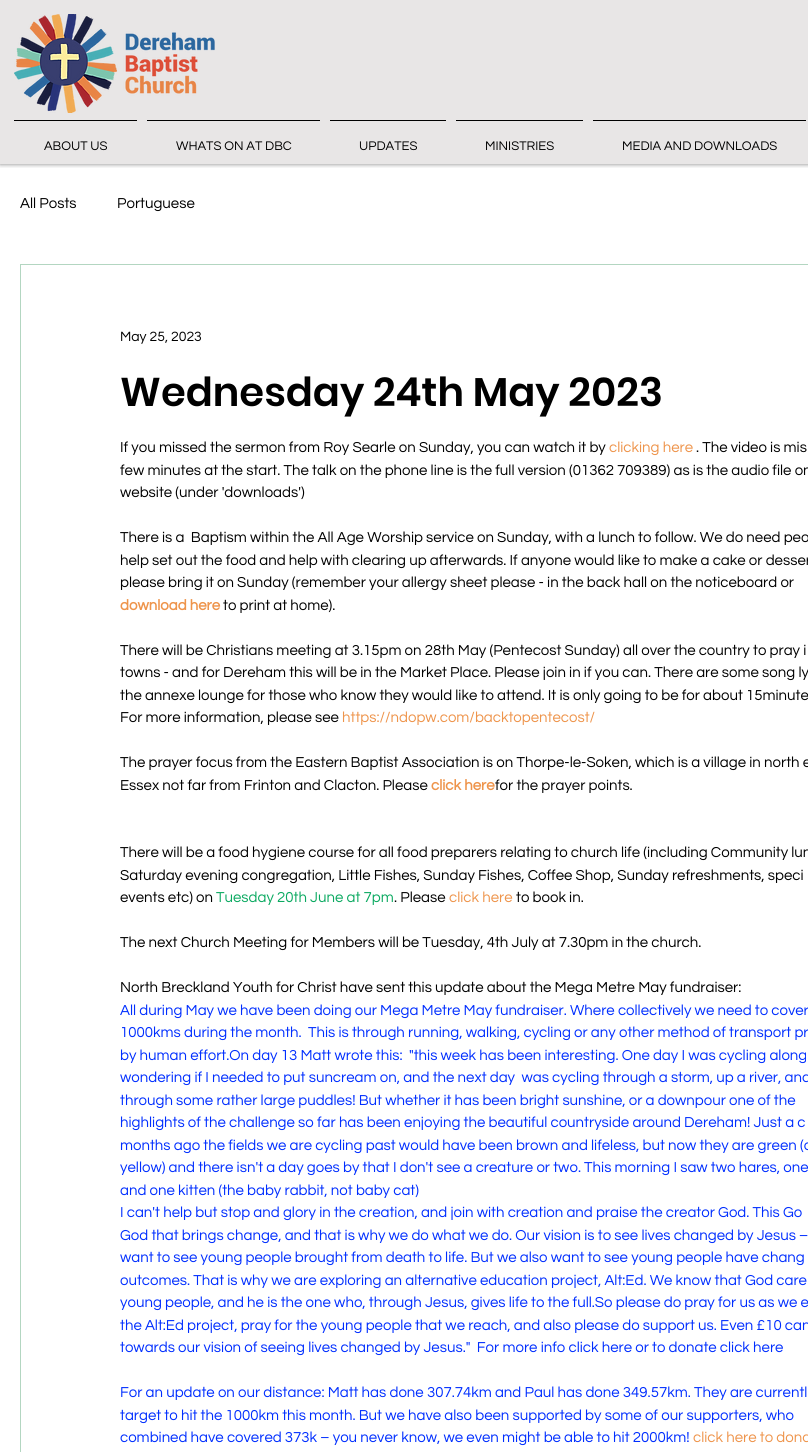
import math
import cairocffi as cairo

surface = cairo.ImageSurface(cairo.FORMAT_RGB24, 808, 1452)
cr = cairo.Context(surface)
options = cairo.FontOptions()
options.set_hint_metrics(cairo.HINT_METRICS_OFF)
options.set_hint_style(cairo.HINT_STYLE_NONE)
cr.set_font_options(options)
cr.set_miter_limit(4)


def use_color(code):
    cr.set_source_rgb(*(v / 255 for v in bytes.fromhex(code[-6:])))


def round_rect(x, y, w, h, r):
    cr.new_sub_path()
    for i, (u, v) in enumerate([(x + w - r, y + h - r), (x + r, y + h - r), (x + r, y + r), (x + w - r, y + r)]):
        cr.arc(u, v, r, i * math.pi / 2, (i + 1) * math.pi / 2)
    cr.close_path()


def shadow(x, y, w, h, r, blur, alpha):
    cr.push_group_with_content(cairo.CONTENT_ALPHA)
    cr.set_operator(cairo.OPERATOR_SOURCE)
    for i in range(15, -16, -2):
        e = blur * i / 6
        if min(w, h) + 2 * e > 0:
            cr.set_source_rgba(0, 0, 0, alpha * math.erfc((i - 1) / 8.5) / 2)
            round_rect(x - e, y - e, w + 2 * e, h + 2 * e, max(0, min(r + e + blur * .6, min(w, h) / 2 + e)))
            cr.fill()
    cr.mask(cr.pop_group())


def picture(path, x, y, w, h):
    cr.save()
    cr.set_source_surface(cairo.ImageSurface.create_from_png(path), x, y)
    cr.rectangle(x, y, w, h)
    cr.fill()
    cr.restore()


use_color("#e8e6e6")
cr.paint()
use_color("#ffffff")
cr.rectangle(0, 164, 808, 1288)
cr.fill()
cr.save()
cr.rectangle(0, 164, 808, 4)
cr.clip()
use_color("#000000")
shadow(0, 0, 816, 164, 0, 2.5, 0.5)
cr.restore()
picture("img1.png", 14, 14, 201, 99)
use_color("#000000")
cr.rectangle(14, 120, 123, 1)
cr.fill()
cr.select_font_face("Questrial")
cr.set_font_size(13)
cr.move_to(44, 150)
cr.show_text("ABOUT US")
cr.rectangle(147, 120, 173, 1)
cr.fill()
cr.move_to(176, 150)
cr.show_text("WHATS ON AT DBC")
cr.rectangle(330, 120, 116, 1)
cr.fill()
cr.move_to(359, 150)
cr.show_text("UPDATES")
cr.rectangle(456, 120, 127, 1)
cr.fill()
cr.move_to(485, 150)
cr.show_text("MINISTRIES")
cr.rectangle(593, 120, 213, 1)
cr.fill()
cr.move_to(622, 150)
cr.show_text("MEDIA AND DOWNLOADS")
cr.set_font_size(15)
cr.move_to(20, 208)
cr.show_text("All Posts")
cr.move_to(117, 208)
cr.show_text("Portuguese")
cr.rectangle(20.5, 264.5, 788, 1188)
use_color("#b3d6c1")
cr.set_line_width(1)
cr.stroke()
cr.set_font_size(14)
use_color("#000000")
cr.move_to(120, 341)
cr.show_text("May 25, 2023")
cr.select_font_face("Poppins SemiBold")
cr.set_font_size(40)
cr.move_to(120, 406)
cr.show_text("Wednesday 24th May 2023")
cr.select_font_face("Questrial")
cr.set_font_size(15)
cr.move_to(120, 452)
cr.show_text("If you missed the sermon from Roy Searle on Sunday, you can watch it by")
use_color("#ee944b")
cr.move_to(609, 452)
cr.show_text("clicking here")
use_color("#000000")
cr.move_to(696, 452)
cr.show_text(". The video is mis")
cr.move_to(120, 475)
cr.show_text("few minutes at the start. The talk on the phone line is the full version (01362 709389) as is the audio file on")
cr.move_to(120, 497)
cr.show_text("website (under 'downloads')")
cr.move_to(120, 542)
cr.show_text("There is a  Baptism within the All Age Worship service on Sunday, with a lunch to follow. We do need peo")
cr.move_to(120, 565)
cr.show_text("help set out the food and help with clearing up afterwards. If anyone would like to make a cake or desser")
cr.move_to(120, 587)
cr.show_text("please bring it on Sunday (remember your allergy sheet please - in the back hall on the noticeboard or")
cr.select_font_face("Questrial", cairo.FONT_SLANT_NORMAL, cairo.FONT_WEIGHT_BOLD)
use_color("#ee944b")
cr.move_to(120, 610)
cr.show_text("download here")
cr.select_font_face("Questrial")
use_color("#000000")
cr.move_to(223, 610)
cr.show_text("to print at home).")
cr.move_to(120, 655)
cr.show_text("There will be Christians meeting at 3.15pm on 28th May (Pentecost Sunday) all over the country to pray i")
cr.move_to(120, 677)
cr.show_text("towns - and for Dereham this will be in the Market Place. Please join in if you can. There are some song ly")
cr.move_to(120, 700)
cr.show_text("the annexe lounge for those who know they would like to attend. It is only going to be for about 15minute")
cr.move_to(120, 722)
cr.show_text("For more information, please see")
use_color("#ee944b")
cr.move_to(342, 722)
cr.show_text("https://ndopw.com/backtopentecost/")
use_color("#000000")
cr.move_to(120, 767)
cr.show_text("The prayer focus from the Eastern Baptist Association is on Thorpe-le-Soken, which is a village in north e")
cr.move_to(120, 790)
cr.show_text("Essex not far from Frinton and Clacton. Please")
cr.select_font_face("Questrial", cairo.FONT_SLANT_NORMAL, cairo.FONT_WEIGHT_BOLD)
use_color("#ee944b")
cr.move_to(431, 790)
cr.show_text("click here")
cr.select_font_face("Questrial")
use_color("#000000")
cr.move_to(495, 790)
cr.show_text("for the prayer points.")
cr.move_to(120, 857)
cr.show_text("There will be a food hygiene course for all food preparers relating to church life (including Community lun")
cr.move_to(120, 880)
cr.show_text("Saturday evening congregation, Little Fishes, Sunday Fishes, Coffee Shop, Sunday refreshments, speci")
cr.move_to(120, 902)
cr.show_text("events etc) on")
use_color("#0aa960")
cr.move_to(216, 902)
cr.show_text("Tuesday 20th June at 7pm")
use_color("#000000")
cr.move_to(394, 902)
cr.show_text(". Please")
use_color("#ee944b")
cr.move_to(449, 902)
cr.show_text("click here")
use_color("#000000")
cr.move_to(516, 902)
cr.show_text("to book in.")
cr.move_to(120, 947)
cr.show_text("The next Church Meeting for Members will be Tuesday, 4th July at 7.30pm in the church.")
cr.move_to(120, 992)
cr.show_text("North Breckland Youth for Christ have sent this update about the Mega Metre May fundraiser:")
use_color("#002eff")
cr.move_to(120, 1015)
cr.show_text("All during May we have been doing our Mega Metre May fundraiser. Where collectively we need to cover")
cr.move_to(120, 1037)
cr.show_text("1000kms during the month.  This is through running, walking, cycling or any other method of transport pr")
cr.move_to(120, 1060)
cr.show_text("by human effort.On day 13 Matt wrote this:  \"this week has been interesting. One day I was cycling along")
cr.move_to(120, 1082)
cr.show_text("wondering if I needed to put suncream on, and the next day  was cycling through a storm, up a river, and")
cr.move_to(120, 1105)
cr.show_text("through some rather large puddles! But whether it has been bright sunshine, or a downpour one of the")
cr.move_to(120, 1127)
cr.show_text("highlights of the challenge so far has been enjoying the beautiful countryside around Dereham! Just a c")
cr.move_to(120, 1150)
cr.show_text("months ago the fields we are cycling past would have been brown and lifeless, but now they are green (o")
cr.move_to(120, 1172)
cr.show_text("yellow) and there isn't a day goes by that I don't see a creature or two. This morning I saw two hares, one")
cr.move_to(120, 1195)
cr.show_text("and one kitten (the baby rabbit, not baby cat)")
cr.move_to(120, 1217)
cr.show_text("I can't help but stop and glory in the creation, and join with creation and praise the creator God. This Go")
cr.move_to(120, 1240)
cr.show_text("God that brings change, and that is why we do what we do. Our vision is to see lives changed by Jesus –")
cr.move_to(120, 1262)
cr.show_text("want to see young people brought from death to life. But we also want to see young people have chang")
cr.move_to(120, 1285)
cr.show_text("outcomes. That is why we are exploring an alternative education project, Alt:Ed. We know that God care")
cr.move_to(120, 1307)
cr.show_text("young people, and he is the one who, through Jesus, gives life to the full.So please do pray for us as we e")
cr.move_to(120, 1330)
cr.show_text("the Alt:Ed project, pray for the young people that we reach, and also please do support us. Even £10 can")
cr.move_to(120, 1352)
cr.show_text("towards our vision of seeing lives changed by Jesus.\"  For more info click here or to donate click here")
cr.move_to(120, 1397)
cr.show_text("For an update on our distance: Matt has done 307.74km and Paul has done 349.57km. They are currentl")
cr.move_to(120, 1420)
cr.show_text("target to hit the 1000km this month. But we have also been supported by some of our supporters, who")
cr.move_to(120, 1442)
cr.show_text("combined have covered 373k – you never know, we even might be able to hit 2000km!")
use_color("#ee944b")
cr.move_to(693, 1442)
cr.show_text("click here to dona")
surface.write_to_png("result.png")
